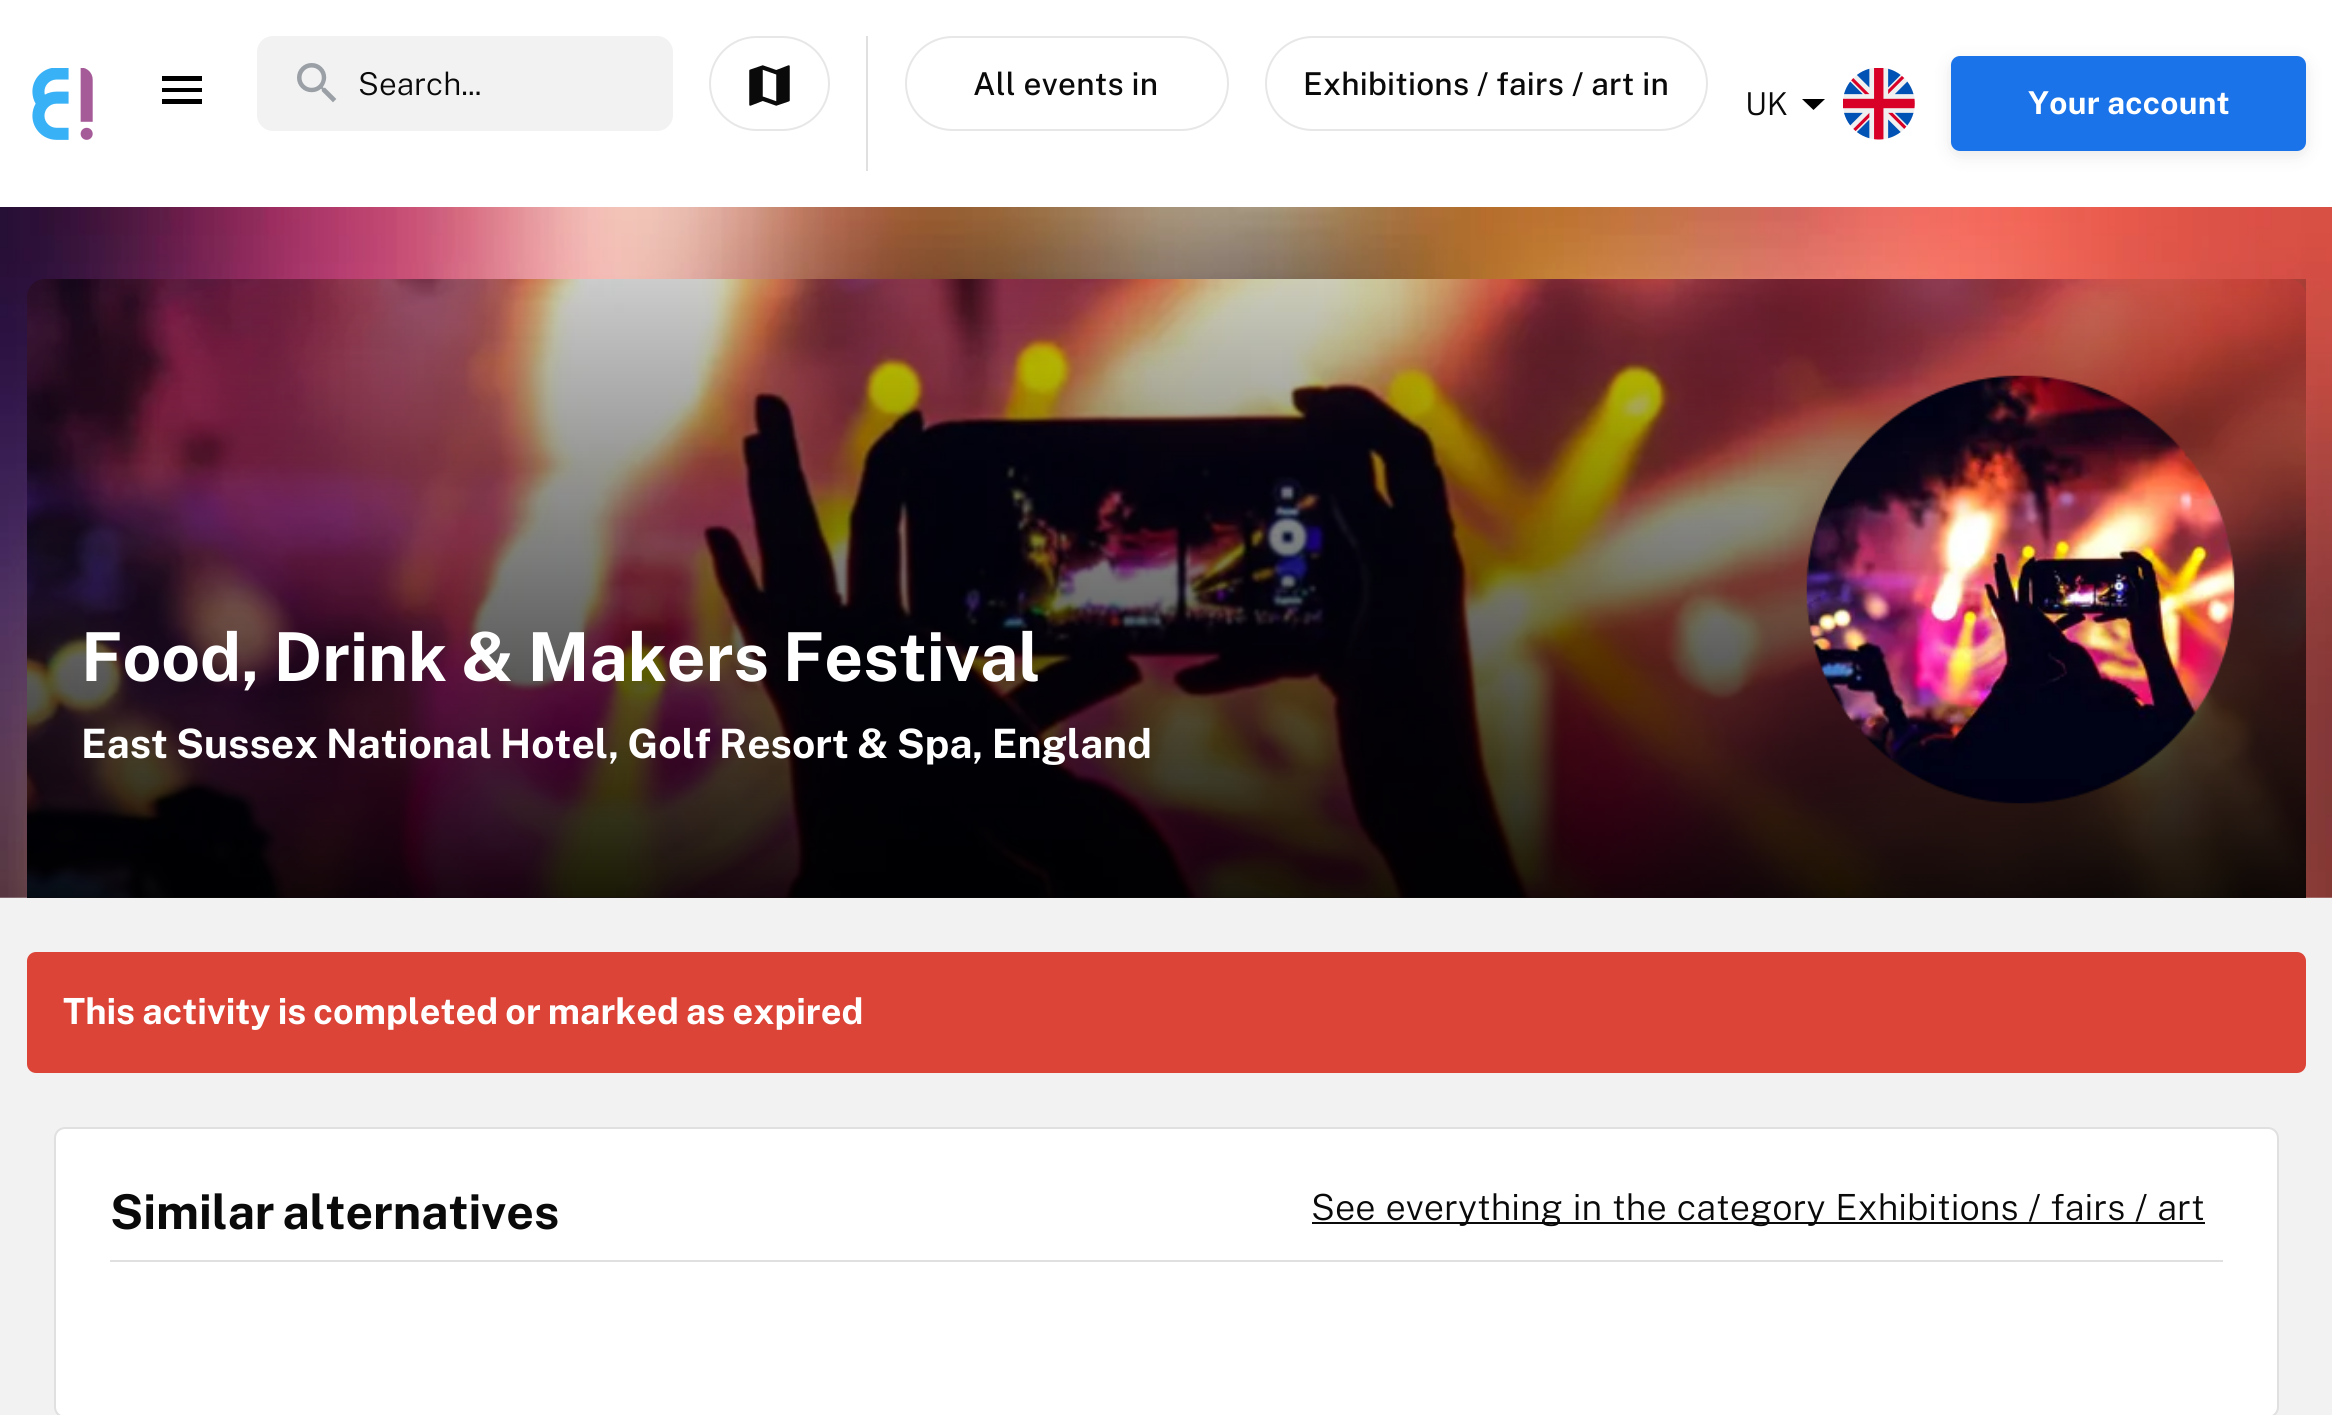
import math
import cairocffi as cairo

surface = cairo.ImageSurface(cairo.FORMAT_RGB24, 2332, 1415)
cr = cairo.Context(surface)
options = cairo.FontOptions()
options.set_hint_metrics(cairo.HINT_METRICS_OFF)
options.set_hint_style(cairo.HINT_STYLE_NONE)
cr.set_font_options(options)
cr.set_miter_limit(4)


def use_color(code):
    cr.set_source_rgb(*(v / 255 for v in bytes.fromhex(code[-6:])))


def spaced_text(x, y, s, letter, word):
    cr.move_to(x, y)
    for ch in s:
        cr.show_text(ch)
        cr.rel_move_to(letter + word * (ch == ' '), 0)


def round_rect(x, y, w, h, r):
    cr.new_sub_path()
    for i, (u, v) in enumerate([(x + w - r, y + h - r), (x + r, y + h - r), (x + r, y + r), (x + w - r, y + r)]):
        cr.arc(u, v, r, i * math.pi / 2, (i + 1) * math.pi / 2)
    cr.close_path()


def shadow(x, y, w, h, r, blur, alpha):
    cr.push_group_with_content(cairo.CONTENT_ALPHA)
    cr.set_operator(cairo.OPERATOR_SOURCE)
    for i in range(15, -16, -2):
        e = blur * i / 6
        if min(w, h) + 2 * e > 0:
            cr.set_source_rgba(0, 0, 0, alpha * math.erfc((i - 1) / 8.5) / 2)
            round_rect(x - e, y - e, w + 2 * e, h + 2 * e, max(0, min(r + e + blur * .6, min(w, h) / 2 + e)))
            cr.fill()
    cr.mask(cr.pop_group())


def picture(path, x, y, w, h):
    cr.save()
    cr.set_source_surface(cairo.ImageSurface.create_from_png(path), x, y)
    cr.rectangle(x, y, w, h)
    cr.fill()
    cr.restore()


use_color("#ffffff")
cr.paint()
picture("img1.png", 32, 68, 61, 72)
use_color("#000000")
cr.new_path()
cr.move_to(162, 76)
cr.line_to(202, 76)
cr.line_to(202, 81)
cr.line_to(162, 81)
cr.close_path()
cr.move_to(162, 92)
cr.line_to(162, 88)
cr.line_to(202, 88)
cr.line_to(202, 92)
cr.close_path()
cr.move_to(162, 104)
cr.line_to(162, 99)
cr.line_to(202, 99)
cr.line_to(202, 104)
cr.close_path()
cr.fill()
use_color("#f2f2f2")
round_rect(257, 36, 416, 95, 16)
cr.fill()
picture("img2.png", 297, 63, 40, 40)
cr.select_font_face("Public Sans Light")
cr.set_font_size(31.5)
use_color("#0a0a0a")
cr.move_to(358, 95)
cr.show_text("Search...")
round_rect(710, 37, 119, 93, 46.5)
use_color("#e7e7e7")
cr.stroke()
picture("img3.png", 749, 65, 41, 41)
use_color("#e0e0e0")
cr.rectangle(866, 36, 2, 135)
cr.fill()
round_rect(906, 37, 322, 93, 46.5)
use_color("#e7e7e7")
cr.stroke()
cr.select_font_face("Public Sans Medium")
use_color("#0a0a0a")
spaced_text(973, 95, "All events in", 0.25, 0)
round_rect(1266, 37, 441, 93, 46.5)
use_color("#e7e7e7")
cr.stroke()
use_color("#0a0a0a")
spaced_text(1303, 95, "Exhibitions / fairs / art in", 0.25, 0)
cr.select_font_face("Public Sans Light")
cr.move_to(1745, 115)
cr.show_text("UK")
use_color("#000000")
cr.new_path()
cr.move_to(1802, 99)
cr.line_to(1825, 99)
cr.line_to(1813.5, 110)
cr.close_path()
cr.fill()
picture("img4.png", 1843, 68, 72, 72)
use_color("#383838")
shadow(1951, 61, 355, 94, 9, 9, 0.12)
use_color("#1a73e8")
round_rect(1951, 56, 355, 95, 9)
cr.fill()
cr.select_font_face("Public Sans", cairo.FONT_SLANT_NORMAL, cairo.FONT_WEIGHT_BOLD)
use_color("#ffffff")
spaced_text(2028, 114, "Your account", 0.25, 0)
use_color("#f2f2f2")
cr.rectangle(0, 897, 2332, 518)
cr.fill()
picture("img5.png", 0, 207, 2332, 691)
picture("img6.png", 27, 279, 2280, 619)
gradient = cairo.LinearGradient(1167, 898, 1167, 279)
gradient.add_color_stop_rgba(0, 0, 0, 0, 0.9)
gradient.add_color_stop_rgba(1, 0, 0, 0, 0.2)
cr.set_source(gradient)
cr.new_path()
cr.move_to(45, 279)
cr.line_to(2306, 279)
cr.line_to(2306, 898)
cr.line_to(27, 898)
cr.line_to(27, 297)
cr.curve_to(27, 287, 35, 279, 45, 279)
cr.close_path()
cr.fill()
cr.set_font_size(67.5)
use_color("#ffffff")
spaced_text(81, 681, "Food, Drink & Makers Festival", 0, -1.5)
cr.set_font_size(40.5)
spaced_text(81, 758, "East Sussex National Hotel, Golf Resort & Spa, England", 0, -1)
picture("img7.png", 1806, 375, 429, 429)
use_color("#db4437")
round_rect(27, 952, 2279, 121, 9)
cr.fill()
cr.set_font_size(36)
use_color("#ffffff")
spaced_text(63, 1024, "This activity is completed or marked as expired", 0, -1)
round_rect(55, 1128, 2223, 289, 10)
cr.fill_preserve()
use_color("#e0e0e0")
cr.stroke()
cr.rectangle(110, 1260, 2113, 2)
cr.fill()
cr.set_font_size(48)
use_color("#0a0a0a")
spaced_text(110, 1229, "Similar alternatives", 0, -3)
cr.rectangle(1312, 1222, 893, 2)
cr.fill()
cr.select_font_face("Public Sans Light")
cr.set_font_size(36)
spaced_text(1311, 1220, "See everything in the category Exhibitions / fairs / art", 0, 1)
surface.write_to_png("result.png")
